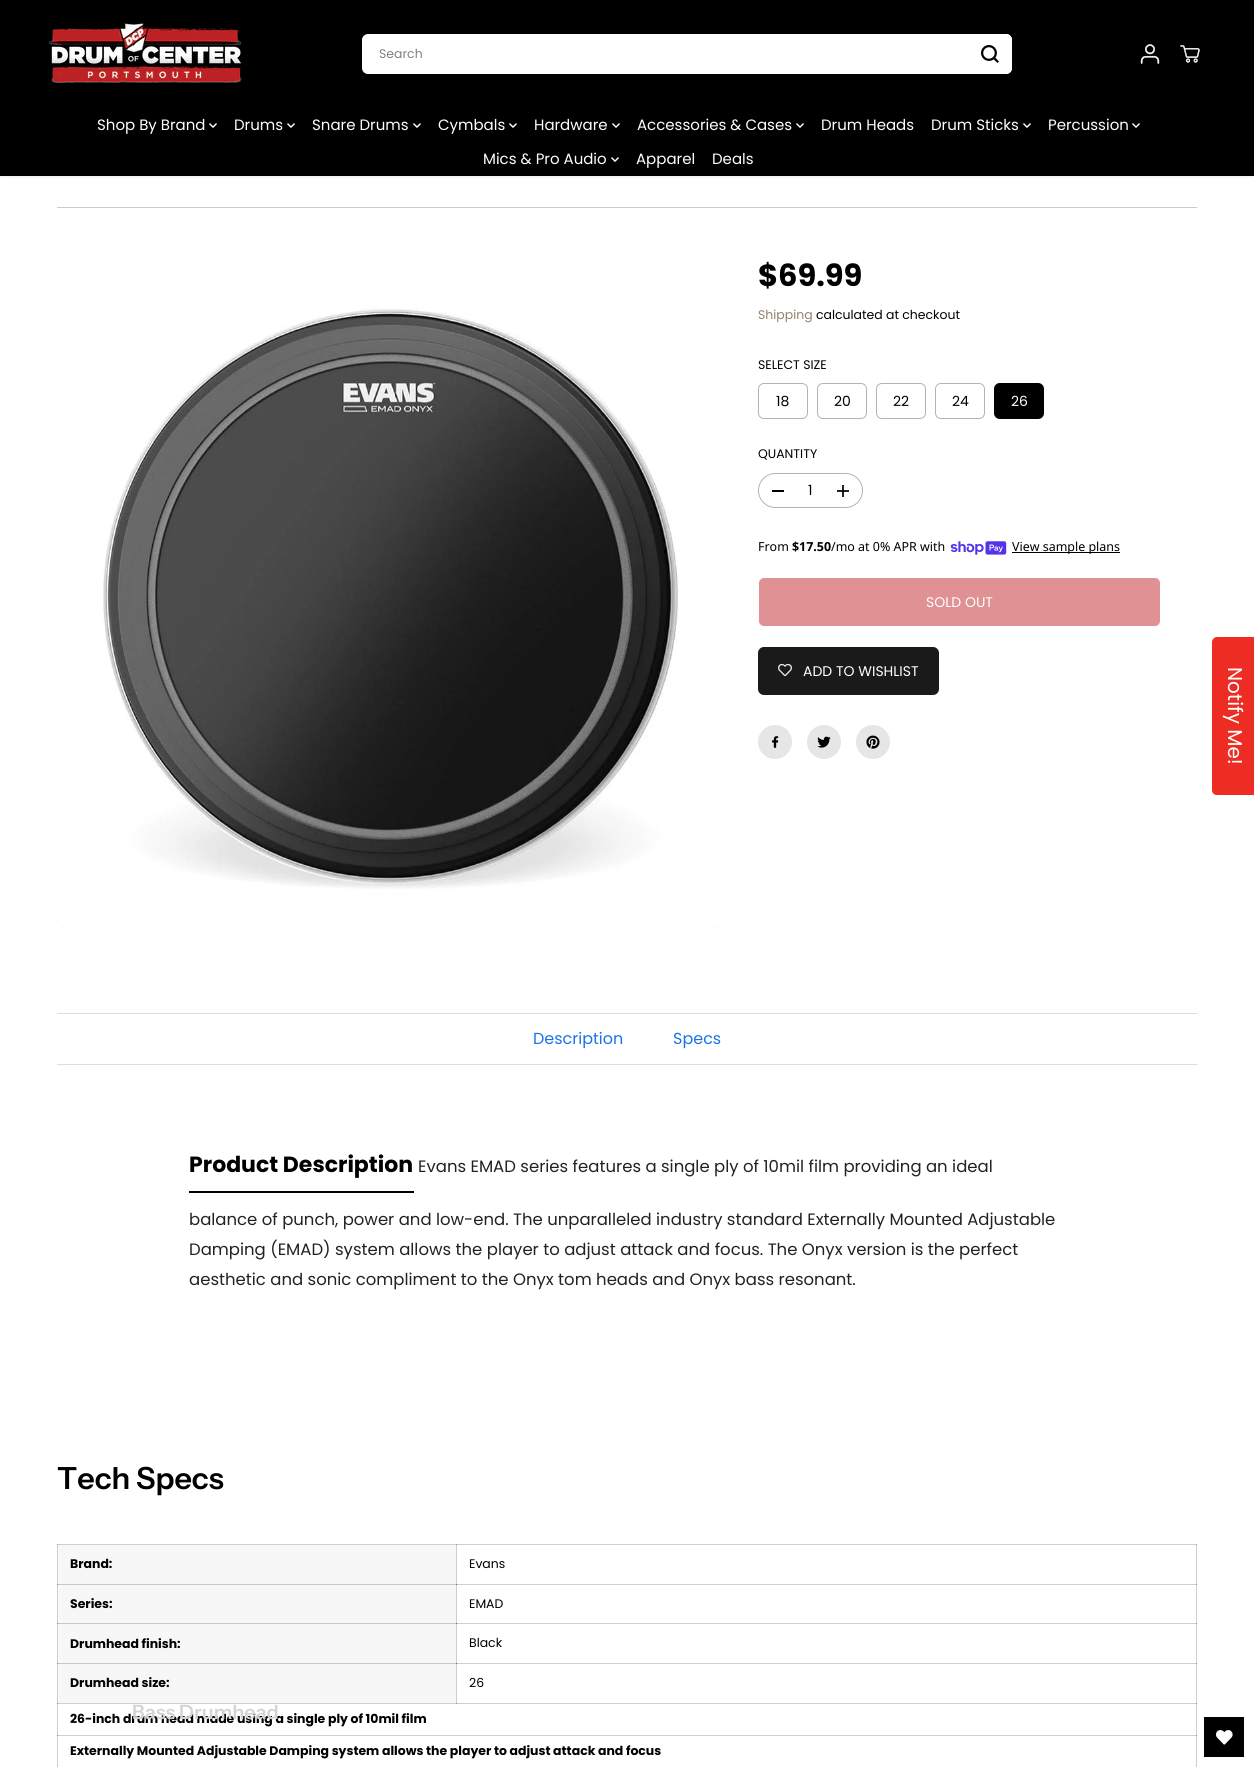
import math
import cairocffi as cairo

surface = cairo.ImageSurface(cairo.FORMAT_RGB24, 1254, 1767)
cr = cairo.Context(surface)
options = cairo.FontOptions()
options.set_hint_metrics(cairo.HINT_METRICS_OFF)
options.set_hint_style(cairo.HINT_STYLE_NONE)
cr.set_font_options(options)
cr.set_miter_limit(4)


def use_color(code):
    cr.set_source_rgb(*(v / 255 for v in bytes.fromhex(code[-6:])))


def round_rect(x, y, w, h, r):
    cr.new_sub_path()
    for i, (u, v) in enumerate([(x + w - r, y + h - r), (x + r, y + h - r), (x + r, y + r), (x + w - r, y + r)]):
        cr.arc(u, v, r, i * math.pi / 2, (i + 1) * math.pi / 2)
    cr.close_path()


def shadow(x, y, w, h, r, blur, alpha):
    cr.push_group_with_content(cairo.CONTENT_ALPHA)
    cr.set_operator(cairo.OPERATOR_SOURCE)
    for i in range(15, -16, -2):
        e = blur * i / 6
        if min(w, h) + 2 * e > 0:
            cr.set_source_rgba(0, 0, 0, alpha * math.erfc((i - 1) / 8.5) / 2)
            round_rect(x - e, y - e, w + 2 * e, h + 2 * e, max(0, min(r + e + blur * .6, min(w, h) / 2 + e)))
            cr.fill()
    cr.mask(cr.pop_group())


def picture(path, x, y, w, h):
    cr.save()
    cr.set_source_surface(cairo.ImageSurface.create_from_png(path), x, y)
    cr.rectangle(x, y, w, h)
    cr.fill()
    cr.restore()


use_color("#ffffff")
cr.paint()
use_color("#cfcfcf")
cr.rectangle(456, 1544, 1, 160)
cr.fill()
cr.rectangle(456, 1584, 741, 1)
cr.fill()
use_color("#6e6e6e")
cr.rectangle(456, 1584, 1, 1)
cr.fill()
use_color("#cfcfcf")
cr.rectangle(456, 1623, 741, 1)
cr.fill()
use_color("#6e6e6e")
cr.rectangle(456, 1623, 1, 1)
cr.fill()
use_color("#cfcfcf")
cr.rectangle(456, 1663, 741, 1)
cr.fill()
use_color("#6e6e6e")
cr.rectangle(456, 1663, 1, 1)
cr.fill()
use_color("#cfcfcf")
cr.rectangle(57, 1703, 1140, 1)
cr.fill()
use_color("#969696")
cr.rectangle(456, 1703, 1, 1)
cr.fill()
use_color("#cfcfcf")
cr.rectangle(57, 1735, 1140, 1)
cr.fill()
cr.rectangle(57, 1544, 1, 223)
cr.fill()
use_color("#969696")
cr.rectangle(57, 1584, 1, 1)
cr.fill()
cr.rectangle(57, 1623, 1, 1)
cr.fill()
cr.rectangle(57, 1663, 1, 1)
cr.fill()
cr.rectangle(57, 1703, 1, 1)
cr.fill()
cr.rectangle(57, 1735, 1, 1)
cr.fill()
use_color("#cfcfcf")
cr.rectangle(1196, 1544, 1, 223)
cr.fill()
use_color("#969696")
cr.rectangle(1196, 1584, 1, 1)
cr.fill()
cr.rectangle(1196, 1623, 1, 1)
cr.fill()
cr.rectangle(1196, 1663, 1, 1)
cr.fill()
cr.rectangle(1196, 1703, 1, 1)
cr.fill()
cr.rectangle(1196, 1735, 1, 1)
cr.fill()
use_color("#000000")
cr.rectangle(0, 0, 1254, 176)
cr.fill()
cr.save()
cr.rectangle(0, 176, 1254, 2)
cr.clip()
use_color("#000000")
shadow(0, 2, 1254, 176, 0, 1, 0.05)
cr.restore()
picture("img1.png", 49, 23, 193, 61)
use_color("#ffffff")
round_rect(363, 35, 648, 38, 5)
cr.fill_preserve()
cr.stroke()
cr.select_font_face("Poppins")
cr.set_font_size(12.45)
use_color("#808080")
cr.move_to(379, 58)
cr.show_text("Search")
use_color("#ffffff")
cr.new_path()
cr.move_to(968, 34)
cr.line_to(1006, 34)
cr.curve_to(1009.5, 34, 1012, 36.5, 1012, 40)
cr.line_to(1012, 68)
cr.curve_to(1012, 71.5, 1009.5, 74, 1006, 74)
cr.line_to(968, 74)
cr.close_path()
cr.fill()
picture("img2.png", 981, 45, 18, 18)
picture("img3.png", 1140, 44, 20, 20)
picture("img4.png", 1180, 45, 20, 18)
cr.set_font_size(15)
cr.move_to(97, 130)
cr.show_text("Shop By Brand")
picture("img5.png", 209, 123, 8, 5)
cr.move_to(234, 130)
cr.show_text("Drums")
picture("img5.png", 287, 123, 8, 5)
cr.move_to(312, 130)
cr.show_text("Snare Drums")
picture("img5.png", 413, 123, 8, 5)
cr.move_to(438, 130)
cr.show_text("Cymbals")
picture("img5.png", 509, 123, 8, 5)
cr.move_to(534, 130)
cr.show_text("Hardware")
picture("img5.png", 612, 123, 8, 5)
cr.move_to(637, 130)
cr.show_text("Accessories & Cases")
picture("img5.png", 796, 123, 8, 5)
cr.move_to(821, 130)
cr.show_text("Drum Heads")
cr.move_to(931, 130)
cr.show_text("Drum Sticks")
picture("img5.png", 1023, 123, 8, 5)
cr.move_to(1048, 130)
cr.show_text("Percussion")
picture("img5.png", 1132, 123, 8, 5)
cr.move_to(483, 164)
cr.show_text("Mics & Pro Audio")
picture("img5.png", 611, 157, 8, 5)
cr.move_to(636, 164)
cr.show_text("Apparel")
cr.move_to(712, 164)
cr.show_text("Deals")
use_color("#cccccc")
cr.rectangle(57, 207, 1140, 1)
cr.fill()
use_color("#f3efec")
round_rect(57, 263, 665, 665, 10)
cr.fill()
picture("img6.png", 57, 263, 665, 665)
cr.select_font_face("Poppins", cairo.FONT_SLANT_NORMAL, cairo.FONT_WEIGHT_BOLD)
cr.set_font_size(30.5)
use_color("#000000")
cr.move_to(758, 286)
cr.show_text("$69.99")
cr.select_font_face("Poppins")
cr.set_font_size(12.45)
use_color("#8f826b")
cr.move_to(758, 319)
cr.show_text("Shipping")
use_color("#000000")
cr.move_to(816, 319)
cr.show_text("calculated at checkout")
cr.move_to(758, 369)
cr.show_text("SELECT SIZE")
round_rect(758.5, 383.5, 49, 35, 5.5)
use_color("#b3b3b3")
cr.set_line_width(1)
cr.stroke()
cr.set_font_size(14)
use_color("#000000")
cr.move_to(776, 406)
cr.show_text("18")
round_rect(817.5, 383.5, 49, 35, 5.5)
use_color("#b3b3b3")
cr.stroke()
use_color("#000000")
cr.move_to(834, 406)
cr.show_text("20")
round_rect(876.5, 383.5, 49, 35, 5.5)
use_color("#b3b3b3")
cr.stroke()
use_color("#000000")
cr.move_to(893, 406)
cr.show_text("22")
round_rect(935.5, 383.5, 49, 35, 5.5)
use_color("#b3b3b3")
cr.stroke()
use_color("#000000")
cr.move_to(952, 406)
cr.show_text("24")
round_rect(994, 383, 50, 36, 6)
cr.fill()
round_rect(994.5, 383.5, 49, 35, 5.5)
cr.set_source_rgba(0, 0, 0, 0.3)
cr.stroke()
use_color("#ffffff")
cr.move_to(1011, 406)
cr.show_text("26")
cr.set_font_size(12.45)
use_color("#000000")
cr.move_to(758, 458)
cr.show_text("QUANTITY")
round_rect(758.5, 473.5, 104, 34, 17)
use_color("#b3b3b3")
cr.stroke()
use_color("#000000")
cr.rectangle(772, 490, 12, 2)
cr.fill()
cr.set_font_size(14)
cr.move_to(808, 495)
cr.show_text("1")
picture("img7.png", 837, 485, 12, 12)
cr.select_font_face("Noto Sans")
cr.set_font_size(12.45)
cr.move_to(758, 551)
cr.show_text("From")
cr.select_font_face("Noto Sans", cairo.FONT_SLANT_NORMAL, cairo.FONT_WEIGHT_BOLD)
cr.move_to(792, 551)
cr.show_text("$17.50")
cr.select_font_face("Noto Sans")
cr.move_to(831, 551)
cr.show_text("/mo at 0% APR with")
picture("img8.png", 950, 541, 57, 14)
cr.rectangle(1012, 552, 108, 1)
cr.fill()
cr.move_to(1012, 551)
cr.show_text("View sample plans")
use_color("#df9193")
round_rect(758.5, 577.5, 402, 49, 5.5)
cr.fill_preserve()
use_color("#ffffff")
cr.stroke()
cr.select_font_face("Poppins")
cr.set_font_size(14)
cr.move_to(926, 607)
cr.show_text("SOLD OUT")
use_color("#1a1a1a")
round_rect(758, 647, 181, 48, 6)
cr.fill()
picture("img9.png", 778, 663, 14, 14)
use_color("#ffffff")
cr.move_to(803, 676)
cr.show_text("ADD TO WISHLIST")
use_color("#e6e6e6")
cr.new_path()
cr.arc(775, 742, 17, 0, 2 * math.pi)
cr.fill()
picture("img10.png", 772, 736, 7, 12)
cr.arc(824, 742, 17, 0, 2 * math.pi)
cr.fill()
picture("img11.png", 817, 736, 14, 12)
cr.arc(873, 742, 17, 0, 2 * math.pi)
cr.fill()
picture("img12.png", 866, 735, 14, 14)
cr.select_font_face("Poppins", cairo.FONT_SLANT_NORMAL, cairo.FONT_WEIGHT_BOLD)
cr.set_font_size(12.45)
use_color("#000000")
cr.move_to(70, 1723)
cr.show_text("26-inch drum head made using a single ply of 10mil film")
cr.select_font_face("Instrument Sans SemiBold")
cr.set_font_size(19.75)
use_color("#d4d4d4")
cr.move_to(132, 1719)
cr.show_text("Bass Drumhead")
use_color("#dddddd")
cr.rectangle(57, 1013, 1140, 1)
cr.fill()
cr.rectangle(57, 1064, 1140, 1)
cr.fill()
cr.select_font_face("Poppins")
cr.set_font_size(16)
use_color("#1a73e8")
cr.move_to(533, 1044)
cr.show_text("Description")
cr.move_to(673, 1044)
cr.show_text("Specs")
use_color("#000000")
cr.rectangle(189, 1191, 225, 2)
cr.fill()
cr.select_font_face("Poppins", cairo.FONT_SLANT_NORMAL, cairo.FONT_WEIGHT_BOLD)
cr.set_font_size(22)
cr.move_to(189, 1172)
cr.show_text("Product Description")
cr.select_font_face("Poppins")
cr.set_font_size(16.5)
use_color("#222222")
cr.move_to(418, 1172)
cr.show_text("Evans EMAD series features a single ply of 10mil film providing an ideal")
cr.move_to(189, 1225)
cr.show_text("balance of punch, power and low-end. The unparalleled industry standard Externally Mounted Adjustable")
cr.move_to(189, 1255)
cr.show_text("Damping (EMAD) system allows the player to adjust attack and focus. The Onyx version is the perfect")
cr.move_to(189, 1285)
cr.show_text("aesthetic and sonic compliment to the Onyx tom heads and Onyx bass resonant.")
cr.select_font_face("Instrument Sans SemiBold")
cr.set_font_size(30.5)
use_color("#000000")
cr.move_to(57, 1489)
cr.show_text("Tech Specs")
use_color("#cfcfcf")
cr.rectangle(57, 1544, 1140, 1)
cr.fill()
use_color("#969696")
cr.rectangle(456, 1544, 1, 1)
cr.fill()
use_color("#a7a7a7")
cr.rectangle(57, 1544, 1, 1)
cr.fill()
cr.rectangle(1196, 1544, 1, 1)
cr.fill()
use_color("#f7f7f7")
cr.rectangle(58, 1545, 398, 39)
cr.fill()
cr.select_font_face("Poppins", cairo.FONT_SLANT_NORMAL, cairo.FONT_WEIGHT_BOLD)
cr.set_font_size(12.45)
use_color("#000000")
cr.move_to(70, 1568)
cr.show_text("Brand:")
cr.select_font_face("Poppins")
cr.move_to(469, 1568)
cr.show_text("Evans")
use_color("#f7f7f7")
cr.rectangle(58, 1585, 398, 38)
cr.fill()
use_color("#c8c8c8")
cr.rectangle(58, 1584, 398, 1)
cr.fill()
cr.rectangle(58, 1623, 398, 1)
cr.fill()
cr.select_font_face("Poppins", cairo.FONT_SLANT_NORMAL, cairo.FONT_WEIGHT_BOLD)
use_color("#000000")
cr.move_to(70, 1608)
cr.show_text("Series:")
cr.select_font_face("Poppins")
cr.move_to(469, 1608)
cr.show_text("EMAD")
use_color("#f7f7f7")
cr.rectangle(58, 1624, 398, 39)
cr.fill()
cr.select_font_face("Poppins", cairo.FONT_SLANT_NORMAL, cairo.FONT_WEIGHT_BOLD)
use_color("#000000")
cr.move_to(70, 1648)
cr.show_text("Drumhead finish:")
cr.select_font_face("Poppins")
cr.move_to(469, 1647)
cr.show_text("Black")
use_color("#f7f7f7")
cr.rectangle(58, 1664, 398, 39)
cr.fill()
use_color("#c8c8c8")
cr.rectangle(58, 1663, 398, 1)
cr.fill()
cr.select_font_face("Poppins", cairo.FONT_SLANT_NORMAL, cairo.FONT_WEIGHT_BOLD)
use_color("#000000")
cr.move_to(70, 1687)
cr.show_text("Drumhead size:")
cr.select_font_face("Poppins")
cr.move_to(469, 1687)
cr.show_text("26")
cr.select_font_face("Poppins", cairo.FONT_SLANT_NORMAL, cairo.FONT_WEIGHT_BOLD)
cr.move_to(70, 1755)
cr.show_text("Externally Mounted Adjustable Damping system allows the player to adjust attack and focus")
use_color("#ed2c24")
cr.new_path()
cr.move_to(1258, 637)
cr.line_to(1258, 795)
cr.line_to(1217, 795)
cr.curve_to(1214, 795, 1212, 793, 1212, 790)
cr.line_to(1212, 642)
cr.curve_to(1212, 640, 1214, 637, 1217, 637)
cr.close_path()
cr.fill()
cr.select_font_face("Poppins")
cr.set_font_size(20)
use_color("#ffffff")
cr.save()
cr.translate(1228, 667)
cr.rotate(90 * math.pi / 180)
cr.move_to(0, 0)
cr.show_text("Notify Me!")
cr.restore()
use_color("#000000")
cr.rectangle(1204, 1717, 40, 40)
cr.fill()
picture("img13.png", 1216, 1730, 17, 15)
surface.write_to_png("result.png")
